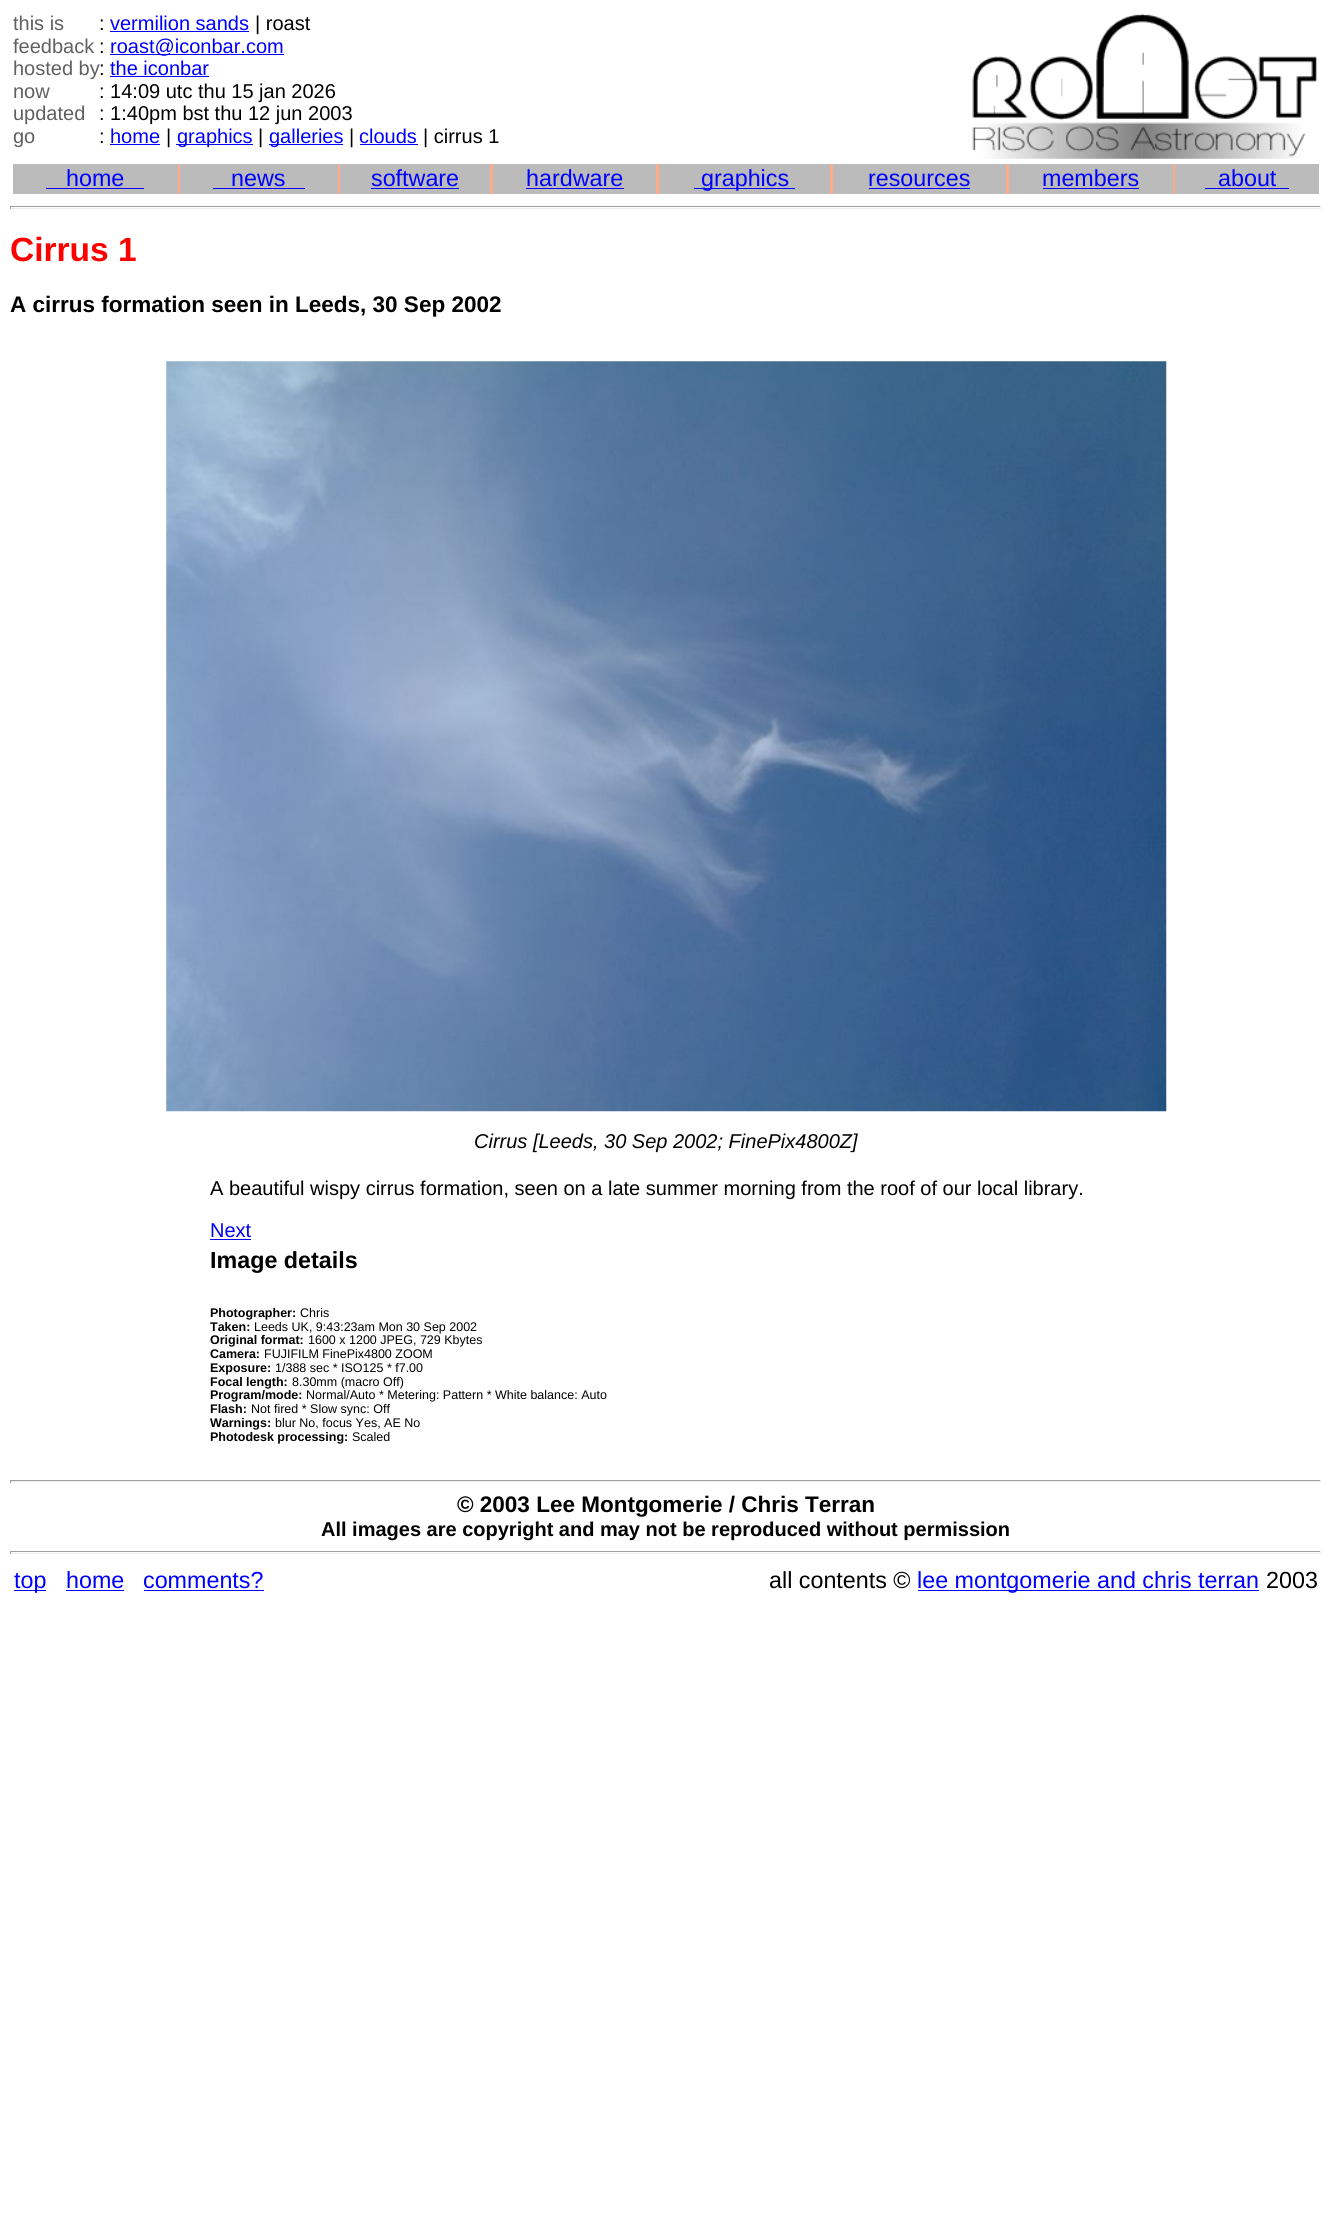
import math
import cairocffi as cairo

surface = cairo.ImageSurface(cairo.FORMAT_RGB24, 1331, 2238)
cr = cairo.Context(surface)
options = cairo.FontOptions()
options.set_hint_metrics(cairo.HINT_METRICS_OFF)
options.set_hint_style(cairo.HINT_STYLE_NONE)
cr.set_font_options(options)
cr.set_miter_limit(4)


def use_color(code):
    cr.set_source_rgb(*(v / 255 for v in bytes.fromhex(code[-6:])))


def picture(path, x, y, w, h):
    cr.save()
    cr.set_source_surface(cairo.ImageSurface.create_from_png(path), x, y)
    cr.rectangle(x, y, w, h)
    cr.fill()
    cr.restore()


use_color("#ffffff")
cr.paint()
cr.select_font_face("Liberation Sans")
cr.set_font_size(20)
use_color("#606060")
cr.move_to(13, 30)
cr.show_text("this is")
use_color("#000000")
cr.move_to(99, 30)
cr.show_text(":")
use_color("#0000ff")
cr.move_to(110, 30)
cr.show_text("vermilion sands")
cr.rectangle(110, 31, 139, 1)
cr.fill()
use_color("#000000")
cr.move_to(255, 30)
cr.show_text("| roast")
use_color("#606060")
cr.move_to(13, 53)
cr.show_text("feedback")
use_color("#000000")
cr.move_to(99, 53)
cr.show_text(":")
use_color("#0000ff")
cr.rectangle(110, 54, 174, 1)
cr.fill()
cr.move_to(110, 53)
cr.show_text("roast@iconbar.com")
use_color("#606060")
cr.move_to(13, 75)
cr.show_text("hosted by")
use_color("#000000")
cr.move_to(99, 75)
cr.show_text(":")
use_color("#0000ff")
cr.move_to(110, 75)
cr.show_text("the iconbar")
cr.rectangle(110, 76, 99, 1)
cr.fill()
use_color("#606060")
cr.move_to(13, 98)
cr.show_text("now")
use_color("#000000")
cr.move_to(99, 98)
cr.show_text(": 14:09 utc thu 15 jan 2026")
use_color("#606060")
cr.move_to(13, 120)
cr.show_text("updated")
use_color("#000000")
cr.move_to(99, 120)
cr.show_text(": 1:40pm bst thu 12 jun 2003")
use_color("#606060")
cr.move_to(13, 143)
cr.show_text("go")
use_color("#000000")
cr.move_to(99, 143)
cr.show_text(":")
use_color("#0000ff")
cr.move_to(110, 143)
cr.show_text("home")
cr.rectangle(110, 144, 50, 1)
cr.fill()
use_color("#000000")
cr.move_to(166, 143)
cr.show_text("|")
use_color("#0000ff")
cr.rectangle(176, 144, 77, 1)
cr.fill()
cr.move_to(177, 143)
cr.show_text("graphics")
use_color("#000000")
cr.move_to(258, 143)
cr.show_text("|")
use_color("#0000ff")
cr.rectangle(269, 144, 74, 1)
cr.fill()
cr.move_to(269, 143)
cr.show_text("galleries")
use_color("#000000")
cr.move_to(349, 143)
cr.show_text("|")
use_color("#0000ff")
cr.move_to(359, 143)
cr.show_text("clouds")
cr.rectangle(360, 144, 58, 1)
cr.fill()
use_color("#000000")
cr.move_to(423, 143)
cr.show_text("| cirrus 1")
picture("img1.png", 972, 13, 345, 146)
use_color("#ffaa88")
cr.rectangle(178, 164, 997, 30)
cr.fill()
use_color("#bbbbbb")
cr.rectangle(13, 164, 165, 30)
cr.fill()
cr.set_font_size(23.3)
use_color("#0000ff")
cr.move_to(66, 186)
cr.show_text("home")
cr.rectangle(46, 188, 98, 1)
cr.fill()
use_color("#bbbbbb")
cr.rectangle(180, 164, 158, 30)
cr.fill()
use_color("#0000ff")
cr.move_to(231, 186)
cr.show_text("news")
cr.rectangle(213, 188, 92, 1)
cr.fill()
use_color("#bbbbbb")
cr.rectangle(340, 164, 150, 30)
cr.fill()
use_color("#0000ff")
cr.move_to(371, 186)
cr.show_text("software")
cr.rectangle(371, 188, 88, 1)
cr.fill()
use_color("#bbbbbb")
cr.rectangle(493, 164, 163, 30)
cr.fill()
use_color("#0000ff")
cr.move_to(526, 186)
cr.show_text("hardware")
cr.rectangle(526, 188, 98, 1)
cr.fill()
use_color("#bbbbbb")
cr.rectangle(659, 164, 171, 30)
cr.fill()
use_color("#0000ff")
cr.rectangle(694, 188, 101, 1)
cr.fill()
cr.move_to(701, 186)
cr.show_text("graphics")
use_color("#bbbbbb")
cr.rectangle(833, 164, 173, 30)
cr.fill()
use_color("#0000ff")
cr.move_to(868, 186)
cr.show_text("resources")
cr.rectangle(869, 188, 101, 1)
cr.fill()
use_color("#bbbbbb")
cr.rectangle(1009, 164, 164, 30)
cr.fill()
use_color("#0000ff")
cr.move_to(1042, 186)
cr.show_text("members")
cr.rectangle(1043, 188, 96, 1)
cr.fill()
use_color("#bbbbbb")
cr.rectangle(1175, 164, 144, 30)
cr.fill()
use_color("#0000ff")
cr.move_to(1218, 186)
cr.show_text("about")
cr.rectangle(1205, 188, 84, 1)
cr.fill()
use_color("#9f9f9f")
cr.rectangle(10, 206, 1311, 1)
cr.fill()
use_color("#eeeeee")
cr.rectangle(1320, 206, 1, 3)
cr.fill()
cr.rectangle(10, 208, 1311, 1)
cr.fill()
use_color("#9f9f9f")
cr.rectangle(10, 206, 1, 3)
cr.fill()
cr.select_font_face("Liberation Sans", cairo.FONT_SLANT_NORMAL, cairo.FONT_WEIGHT_BOLD)
cr.set_font_size(33.5)
use_color("#ff0000")
cr.move_to(10, 261)
cr.show_text("Cirrus 1")
cr.set_font_size(22.5)
use_color("#000000")
cr.move_to(10, 312)
cr.show_text("A cirrus formation seen in Leeds, 30 Sep 2002")
picture("img2.png", 166, 361, 1001, 751)
cr.select_font_face("Liberation Sans", cairo.FONT_SLANT_ITALIC)
cr.set_font_size(20)
cr.move_to(474, 1148)
cr.show_text("Cirrus [Leeds, 30 Sep 2002; FinePix4800Z]")
cr.select_font_face("Liberation Sans")
cr.move_to(210, 1195)
cr.show_text("A beautiful wispy cirrus formation, seen on a late summer morning from the roof of our local library.")
use_color("#0000ff")
cr.move_to(210, 1237)
cr.show_text("Next")
cr.rectangle(210, 1239, 41, 1)
cr.fill()
cr.select_font_face("Liberation Sans", cairo.FONT_SLANT_NORMAL, cairo.FONT_WEIGHT_BOLD)
cr.set_font_size(23.3)
use_color("#000000")
cr.move_to(210, 1268)
cr.show_text("Image details")
cr.set_font_size(12.5)
cr.move_to(210, 1317)
cr.show_text("Photographer:")
cr.select_font_face("Liberation Sans")
cr.move_to(300, 1317)
cr.show_text("Chris")
cr.select_font_face("Liberation Sans", cairo.FONT_SLANT_NORMAL, cairo.FONT_WEIGHT_BOLD)
cr.move_to(210, 1331)
cr.show_text("Taken:")
cr.select_font_face("Liberation Sans")
cr.move_to(254, 1331)
cr.show_text("Leeds UK, 9:43:23am Mon 30 Sep 2002")
cr.select_font_face("Liberation Sans", cairo.FONT_SLANT_NORMAL, cairo.FONT_WEIGHT_BOLD)
cr.move_to(210, 1344)
cr.show_text("Original format:")
cr.select_font_face("Liberation Sans")
cr.move_to(308, 1344)
cr.show_text("1600 x 1200 JPEG, 729 Kbytes")
cr.select_font_face("Liberation Sans", cairo.FONT_SLANT_NORMAL, cairo.FONT_WEIGHT_BOLD)
cr.move_to(210, 1358)
cr.show_text("Camera:")
cr.select_font_face("Liberation Sans")
cr.move_to(264, 1358)
cr.show_text("FUJIFILM FinePix4800 ZOOM")
cr.select_font_face("Liberation Sans", cairo.FONT_SLANT_NORMAL, cairo.FONT_WEIGHT_BOLD)
cr.move_to(210, 1372)
cr.show_text("Exposure:")
cr.select_font_face("Liberation Sans")
cr.move_to(275, 1372)
cr.show_text("1/388 sec * ISO125 * f7.00")
cr.select_font_face("Liberation Sans", cairo.FONT_SLANT_NORMAL, cairo.FONT_WEIGHT_BOLD)
cr.move_to(210, 1386)
cr.show_text("Focal length:")
cr.select_font_face("Liberation Sans")
cr.move_to(292, 1386)
cr.show_text("8.30mm (macro Off)")
cr.select_font_face("Liberation Sans", cairo.FONT_SLANT_NORMAL, cairo.FONT_WEIGHT_BOLD)
cr.move_to(210, 1399)
cr.show_text("Program/mode:")
cr.select_font_face("Liberation Sans")
cr.move_to(306, 1399)
cr.show_text("Normal/Auto * Metering: Pattern * White balance: Auto")
cr.select_font_face("Liberation Sans", cairo.FONT_SLANT_NORMAL, cairo.FONT_WEIGHT_BOLD)
cr.move_to(210, 1413)
cr.show_text("Flash:")
cr.select_font_face("Liberation Sans")
cr.move_to(251, 1413)
cr.show_text("Not fired * Slow sync: Off")
cr.select_font_face("Liberation Sans", cairo.FONT_SLANT_NORMAL, cairo.FONT_WEIGHT_BOLD)
cr.move_to(210, 1427)
cr.show_text("Warnings:")
cr.select_font_face("Liberation Sans")
cr.move_to(275, 1427)
cr.show_text("blur No, focus Yes, AE No")
cr.select_font_face("Liberation Sans", cairo.FONT_SLANT_NORMAL, cairo.FONT_WEIGHT_BOLD)
cr.move_to(210, 1441)
cr.show_text("Photodesk processing:")
cr.select_font_face("Liberation Sans")
cr.move_to(352, 1441)
cr.show_text("Scaled")
use_color("#9f9f9f")
cr.rectangle(10, 1480, 1311, 1)
cr.fill()
use_color("#eeeeee")
cr.rectangle(1320, 1480, 1, 3)
cr.fill()
cr.rectangle(10, 1481, 1311, 1)
cr.fill()
use_color("#9f9f9f")
cr.rectangle(10, 1480, 1, 3)
cr.fill()
cr.select_font_face("Liberation Sans", cairo.FONT_SLANT_NORMAL, cairo.FONT_WEIGHT_BOLD)
cr.set_font_size(22.5)
use_color("#000000")
cr.move_to(457, 1512)
cr.show_text("© 2003 Lee Montgomerie / Chris Terran")
cr.set_font_size(20)
cr.move_to(321, 1536)
cr.show_text("All images are copyright and may not be reproduced without permission")
use_color("#9f9f9f")
cr.rectangle(10, 1551, 1311, 1)
cr.fill()
use_color("#eeeeee")
cr.rectangle(1320, 1551, 1, 3)
cr.fill()
cr.rectangle(10, 1553, 1311, 1)
cr.fill()
use_color("#9f9f9f")
cr.rectangle(10, 1551, 1, 3)
cr.fill()
use_color("#0000ff")
cr.rectangle(14, 1590, 32, 1)
cr.fill()
cr.select_font_face("Liberation Sans")
cr.set_font_size(23.3)
cr.move_to(14, 1588)
cr.show_text("top")
cr.move_to(66, 1588)
cr.show_text("home")
cr.rectangle(66, 1590, 58, 1)
cr.fill()
cr.move_to(143, 1588)
cr.show_text("comments?")
cr.rectangle(144, 1590, 120, 1)
cr.fill()
use_color("#000000")
cr.move_to(769, 1588)
cr.show_text("all contents ©")
use_color("#0000ff")
cr.rectangle(918, 1590, 341, 1)
cr.fill()
cr.move_to(917, 1588)
cr.show_text("lee montgomerie and chris terran")
use_color("#000000")
cr.move_to(1266, 1588)
cr.show_text("2003")
surface.write_to_png("result.png")
